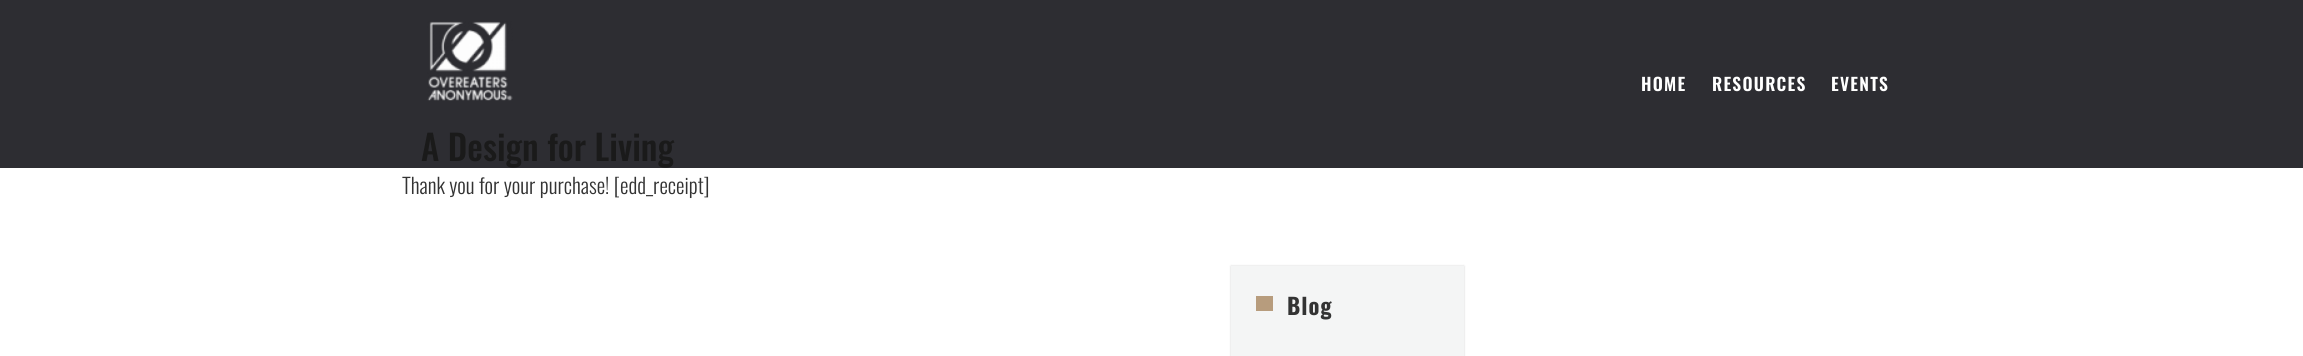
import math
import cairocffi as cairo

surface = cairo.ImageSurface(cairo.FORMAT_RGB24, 2303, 356)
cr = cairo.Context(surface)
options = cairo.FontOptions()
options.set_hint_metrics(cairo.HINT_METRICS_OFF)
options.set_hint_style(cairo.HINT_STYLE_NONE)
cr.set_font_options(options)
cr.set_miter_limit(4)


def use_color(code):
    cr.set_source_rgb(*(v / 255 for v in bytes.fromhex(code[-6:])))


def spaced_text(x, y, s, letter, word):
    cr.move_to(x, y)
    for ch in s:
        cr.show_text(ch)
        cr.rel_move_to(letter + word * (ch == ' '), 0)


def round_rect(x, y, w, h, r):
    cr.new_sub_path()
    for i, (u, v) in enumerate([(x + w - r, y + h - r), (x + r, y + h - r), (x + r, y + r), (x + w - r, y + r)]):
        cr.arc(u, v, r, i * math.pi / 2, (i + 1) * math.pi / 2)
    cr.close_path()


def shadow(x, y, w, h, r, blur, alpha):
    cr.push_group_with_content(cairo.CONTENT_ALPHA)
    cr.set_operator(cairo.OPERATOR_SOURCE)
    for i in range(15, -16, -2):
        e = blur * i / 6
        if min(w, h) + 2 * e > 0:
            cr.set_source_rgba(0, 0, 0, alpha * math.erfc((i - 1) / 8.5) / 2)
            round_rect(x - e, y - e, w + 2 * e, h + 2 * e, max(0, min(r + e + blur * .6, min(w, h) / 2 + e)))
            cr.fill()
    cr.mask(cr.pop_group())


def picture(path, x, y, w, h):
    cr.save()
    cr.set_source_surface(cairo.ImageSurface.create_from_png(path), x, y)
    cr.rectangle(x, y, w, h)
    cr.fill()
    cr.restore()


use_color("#ffffff")
cr.paint()
use_color("#2d2d32")
cr.rectangle(0, 0, 2303, 168)
cr.fill()
cr.select_font_face("Oswald SemiBold")
cr.set_font_size(17.5)
use_color("#ffffff")
spaced_text(1641, 91, "HOME", 1.25, 0)
spaced_text(1712, 91, "RESOURCES", 1.25, 0)
spaced_text(1831, 91, "EVENTS", 1.25, 0)
picture("img1.png", 427, 21, 86, 80)
cr.select_font_face("Oswald Medium")
cr.set_font_size(35)
use_color("#1a1a1a")
cr.move_to(421, 161)
cr.show_text("A Design for Living")
cr.select_font_face("Oswald Light")
cr.set_font_size(21.25)
use_color("#333333")
cr.move_to(402, 194)
cr.show_text("Thank you for your purchase! [edd_receipt]")
use_color("#000000")
shadow(1231, 266, 233, 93, 0, 1, 0.18)
use_color("#f4f5f5")
cr.rectangle(1231, 266, 233, 90)
cr.fill()
use_color("#b79c7d")
cr.rectangle(1256, 296, 17, 15)
cr.fill()
cr.select_font_face("Oswald", cairo.FONT_SLANT_NORMAL, cairo.FONT_WEIGHT_BOLD)
cr.set_font_size(22.5)
use_color("#333333")
spaced_text(1287, 315, "Blog", 1, 0)
surface.write_to_png("result.png")
